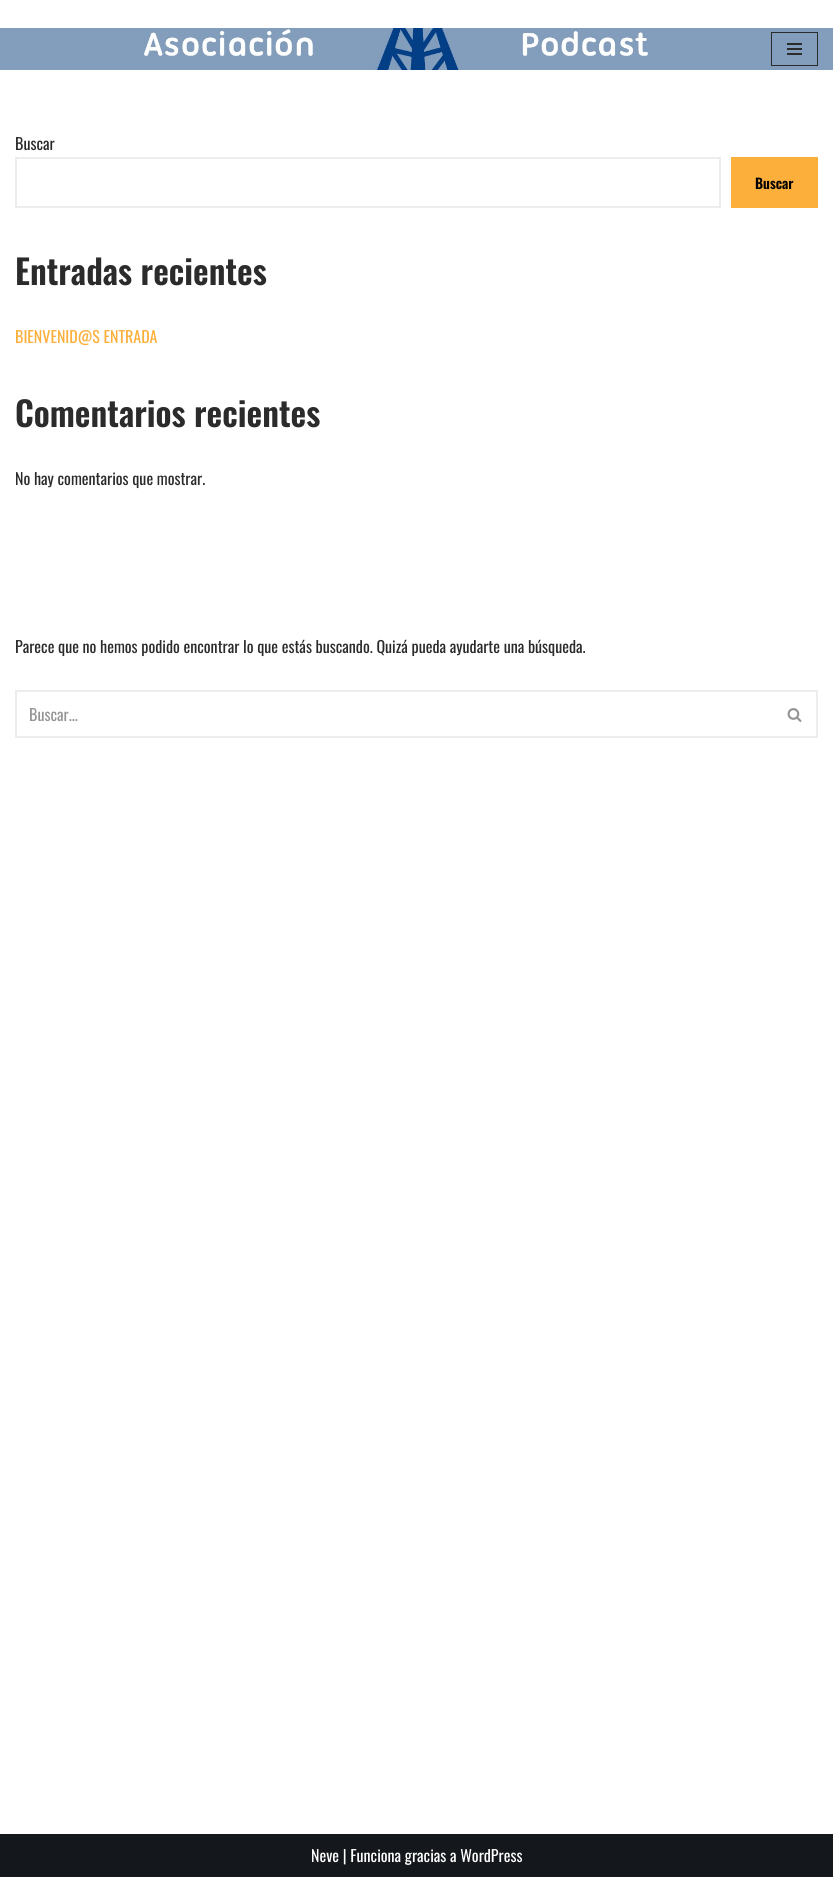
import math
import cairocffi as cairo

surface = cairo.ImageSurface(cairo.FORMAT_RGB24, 833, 1877)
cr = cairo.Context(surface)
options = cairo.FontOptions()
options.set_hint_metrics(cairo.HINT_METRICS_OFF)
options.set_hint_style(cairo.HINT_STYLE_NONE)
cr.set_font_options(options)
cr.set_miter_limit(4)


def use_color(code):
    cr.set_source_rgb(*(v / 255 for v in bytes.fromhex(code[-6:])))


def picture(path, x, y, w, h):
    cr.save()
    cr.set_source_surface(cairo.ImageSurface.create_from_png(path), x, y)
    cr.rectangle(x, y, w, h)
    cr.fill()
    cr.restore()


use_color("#ffffff")
cr.paint()
picture("img1.png", 0, 28, 833, 42)
cr.rectangle(771.5, 32.5, 46, 33)
use_color("#2b2b2b")
cr.set_line_width(1)
cr.stroke()
cr.rectangle(787, 43, 15, 2)
cr.fill()
cr.rectangle(787, 48, 15, 2)
cr.fill()
cr.rectangle(787, 53, 15, 2)
cr.fill()
cr.select_font_face("Oswald")
cr.set_font_size(16)
cr.move_to(15, 150)
cr.show_text("Buscar")
cr.rectangle(16, 158, 704, 49)
use_color("#ededed")
cr.set_line_width(2)
cr.stroke()
use_color("#fcaf3b")
cr.rectangle(731, 157, 87, 51)
cr.fill()
cr.select_font_face("Oswald SemiBold")
cr.set_font_size(14)
use_color("#010101")
cr.move_to(755, 189)
cr.show_text("Buscar")
cr.set_font_size(34)
use_color("#2b2b2b")
cr.move_to(15, 285)
cr.show_text("Entradas recientes")
cr.select_font_face("Oswald")
cr.set_font_size(16)
use_color("#fcaf3b")
cr.move_to(15, 343)
cr.show_text("BIENVENID@S ENTRADA")
cr.select_font_face("Oswald SemiBold")
cr.set_font_size(34)
use_color("#2b2b2b")
cr.move_to(15, 427)
cr.show_text("Comentarios recientes")
cr.select_font_face("Oswald")
cr.set_font_size(16)
cr.move_to(15, 485)
cr.show_text("No hay comentarios que mostrar.")
cr.move_to(15, 653)
cr.show_text("Parece que no hemos podido encontrar lo que estás buscando. Quizá pueda ayudarte una búsqueda.")
use_color("#ededed")
cr.rectangle(15, 690, 803, 2)
cr.fill()
cr.rectangle(15, 736, 758, 2)
cr.fill()
cr.rectangle(15, 690, 2, 48)
cr.fill()
use_color("#959595")
cr.move_to(29, 721)
cr.show_text("Buscar...")
use_color("#ededed")
cr.rectangle(816, 690, 2, 48)
cr.fill()
cr.rectangle(773, 736, 45, 2)
cr.fill()
picture("img2.png", 787, 708, 15, 14)
use_color("#14171c")
cr.rectangle(0, 1834, 833, 43)
cr.fill()
use_color("#ffffff")
cr.move_to(311, 1862)
cr.show_text("Neve | Funciona gracias a WordPress")
surface.write_to_png("result.png")
